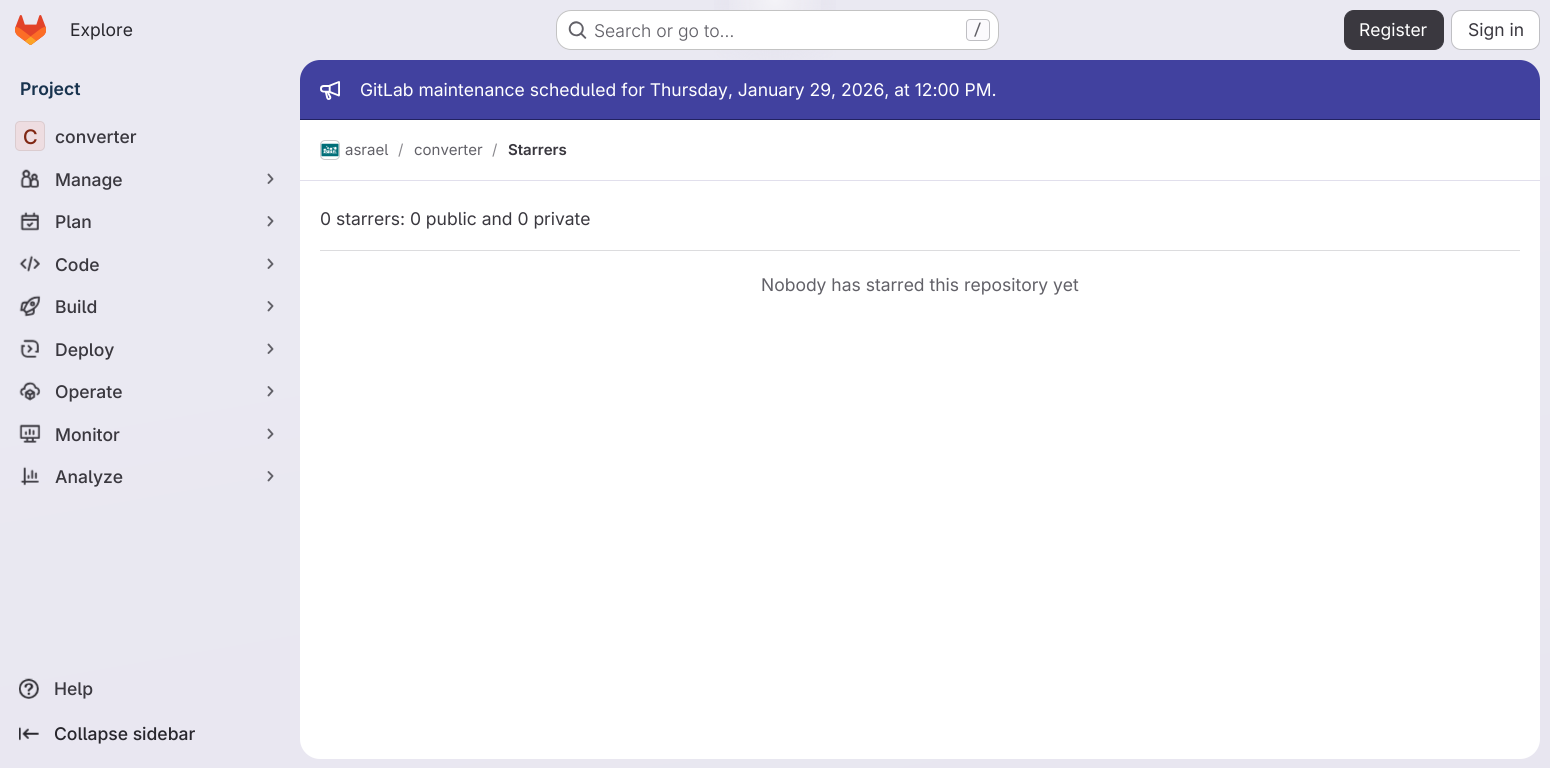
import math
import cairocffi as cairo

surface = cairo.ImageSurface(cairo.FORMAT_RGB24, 1550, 768)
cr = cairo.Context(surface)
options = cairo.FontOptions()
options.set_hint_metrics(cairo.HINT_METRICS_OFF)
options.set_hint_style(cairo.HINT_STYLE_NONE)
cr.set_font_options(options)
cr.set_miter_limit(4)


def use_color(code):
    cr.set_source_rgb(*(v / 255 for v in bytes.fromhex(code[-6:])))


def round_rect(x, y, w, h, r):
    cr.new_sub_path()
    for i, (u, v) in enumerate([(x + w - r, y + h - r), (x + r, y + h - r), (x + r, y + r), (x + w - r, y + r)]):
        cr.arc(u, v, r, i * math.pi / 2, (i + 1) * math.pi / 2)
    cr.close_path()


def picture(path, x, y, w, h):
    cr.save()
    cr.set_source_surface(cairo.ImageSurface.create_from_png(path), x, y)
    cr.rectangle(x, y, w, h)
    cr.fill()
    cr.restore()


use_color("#ffffff")
cr.paint()
gradient = cairo.LinearGradient(864, 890, 686, -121)
gradient.add_color_stop_rgba(0, 0.91, 0.902, 0.941, 1)
gradient.add_color_stop_rgba(0.7, 0.918, 0.914, 0.949, 1)
cr.set_source(gradient)
cr.rectangle(0, 0, 1550, 768)
cr.fill()
gradient = cairo.RadialGradient(0, 0, 0, 0, 0, 1)
gradient.set_matrix(cairo.Matrix(1 / 775, 0, 0, 1 / 769, -1 * 775 / 775, -1 * 0 / 769))
gradient.add_color_stop_rgba(0, 0.894, 0.886, 0.929, 1)
gradient.add_color_stop_rgba(0.11, 0.894, 0.886, 0.929, 0)
cr.set_source(gradient)
cr.rectangle(714, 0, 122, 60)
cr.fill()
gradient = cairo.RadialGradient(0, 0, 0, 0, 0, 1)
gradient.set_matrix(cairo.Matrix(1 / 775, 0, 0, 1 / 769, -1 * 775 / 775, -1 * 0 / 769))
gradient.add_color_stop_rgba(0, 0.894, 0.886, 0.925, 1)
gradient.add_color_stop_rgba(0.08, 0.894, 0.886, 0.925, 0)
cr.set_source(gradient)
cr.rectangle(749, 0, 52, 19)
cr.fill()
gradient = cairo.RadialGradient(775, 0, 0, 775, 0, 1092)
gradient.add_color_stop_rgba(0, 1, 1, 1, 0.6)
gradient.add_color_stop_rgba(0.05, 1, 1, 1, 0)
cr.set_source(gradient)
cr.rectangle(729, 0, 92, 46)
cr.fill()
picture("img1.png", 15, 15, 31, 30)
cr.select_font_face("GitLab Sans")
cr.set_font_size(17.5)
use_color("#28272d")
cr.move_to(70, 36)
cr.show_text("Explore")
use_color("#ffffff")
round_rect(556, 10, 443, 40, 15)
cr.fill()
round_rect(556.5, 10.5, 442, 39, 14.5)
cr.set_source_rgba(0.02, 0.02, 0.024, 0.24)
cr.set_line_width(1)
cr.stroke()
picture("img2.png", 568, 21, 19, 18)
cr.select_font_face("GitLab Sans Light")
use_color("#626168")
cr.move_to(594, 37)
cr.show_text("Search or go to…")
use_color("#fbfafd")
round_rect(966.5, 19.5, 23, 21, 3.5)
cr.fill_preserve()
use_color("#bfbfc3")
cr.stroke()
cr.select_font_face("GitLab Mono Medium")
cr.set_font_size(15)
use_color("#626168")
cr.move_to(973, 35)
cr.show_text("/")
use_color("#3a383f")
round_rect(1344.5, 10.5, 99, 39, 9.5)
cr.fill_preserve()
cr.stroke()
cr.select_font_face("GitLab Sans")
cr.set_font_size(17.5)
use_color("#ffffff")
cr.move_to(1359, 36)
cr.show_text("Register")
round_rect(1451.5, 10.5, 88, 39, 9.5)
cr.fill_preserve()
use_color("#bfbfc3")
cr.stroke()
use_color("#3a383f")
cr.move_to(1468, 36)
cr.show_text("Sign in")
cr.select_font_face("GitLab Sans SemiBold")
use_color("#18334e")
cr.move_to(20, 95)
cr.show_text("Project")
use_color("#eedde1")
round_rect(15, 121, 30, 30, 5)
cr.fill()
round_rect(15.5, 121.5, 29, 29, 4.5)
cr.set_source_rgba(0.02, 0.02, 0.024, 0.08)
cr.stroke()
cr.select_font_face("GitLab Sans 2 Medium")
cr.set_font_size(20)
use_color("#812713")
cr.move_to(23, 144)
cr.show_text("C")
cr.select_font_face("GitLab Sans Medium")
cr.set_font_size(17.5)
use_color("#3a383f")
cr.move_to(55, 143)
cr.show_text("converter")
picture("img3.png", 20, 169, 19, 19)
cr.move_to(55, 186)
cr.show_text("Manage")
cr.new_path()
cr.move_to(268.5, 174.5)
cr.line_to(272.5, 179)
cr.line_to(268.5, 183)
use_color("#626168")
cr.set_line_width(1.9)
cr.set_line_cap(cairo.LINE_CAP_ROUND)
cr.set_line_join(cairo.LINE_JOIN_ROUND)
cr.stroke()
picture("img4.png", 20, 211, 19, 20)
use_color("#3a383f")
cr.move_to(55, 228)
cr.show_text("Plan")
cr.new_path()
cr.move_to(268.5, 217)
cr.line_to(272.5, 221)
cr.line_to(268.5, 225.5)
use_color("#626168")
cr.stroke()
picture("img5.png", 19, 255, 21, 17)
use_color("#3a383f")
cr.move_to(55, 271)
cr.show_text("Code")
cr.new_path()
cr.move_to(268.5, 259.5)
cr.line_to(272.5, 264)
cr.line_to(268.5, 268)
use_color("#626168")
cr.stroke()
picture("img6.png", 19, 295, 22, 22)
use_color("#3a383f")
cr.move_to(55, 313)
cr.show_text("Build")
cr.new_path()
cr.move_to(268.5, 302)
cr.line_to(272.5, 306)
cr.line_to(268.5, 310.5)
use_color("#626168")
cr.stroke()
picture("img7.png", 20, 339, 19, 19)
use_color("#3a383f")
cr.move_to(55, 356)
cr.show_text("Deploy")
cr.new_path()
cr.move_to(268.5, 344.5)
cr.line_to(272.5, 349)
cr.line_to(268.5, 353)
use_color("#626168")
cr.stroke()
picture("img8.png", 19, 381, 22, 20)
use_color("#3a383f")
cr.move_to(55, 398)
cr.show_text("Operate")
cr.new_path()
cr.move_to(268.5, 387)
cr.line_to(272.5, 391)
cr.line_to(268.5, 395.5)
use_color("#626168")
cr.stroke()
picture("img9.png", 19, 424, 22, 19)
use_color("#3a383f")
cr.move_to(55, 441)
cr.show_text("Monitor")
cr.new_path()
cr.move_to(268.5, 429.5)
cr.line_to(272.5, 434)
cr.line_to(268.5, 438)
use_color("#626168")
cr.stroke()
picture("img10.png", 20, 466, 19, 20)
use_color("#3a383f")
cr.move_to(55, 483)
cr.show_text("Analyze")
cr.new_path()
cr.move_to(268.5, 472)
cr.line_to(272.5, 476)
cr.line_to(268.5, 480.5)
use_color("#626168")
cr.stroke()
picture("img11.png", 19, 678, 20, 21)
use_color("#3a383f")
cr.move_to(54, 695)
cr.show_text("Help")
picture("img12.png", 19, 726, 20, 15)
use_color("#28272d")
cr.move_to(54, 740)
cr.show_text("Collapse sidebar")
use_color("#ffffff")
round_rect(300, 60, 1240, 699, 20)
cr.fill()
use_color("#41419f")
cr.new_path()
cr.move_to(320, 60)
cr.line_to(1520, 60)
cr.curve_to(1531, 60, 1540, 69, 1540, 80)
cr.line_to(1540, 120)
cr.line_to(300, 120)
cr.line_to(300, 80)
cr.curve_to(300, 69, 309, 60, 320, 60)
cr.close_path()
cr.fill()
use_color("#222261")
cr.rectangle(300, 119, 1240, 1)
cr.fill()
picture("img13.png", 320, 81, 20, 19)
cr.select_font_face("GitLab Sans")
use_color("#ffffff")
cr.move_to(360, 96)
cr.show_text("GitLab maintenance scheduled for Thursday, January 29, 2026, at 12:00 PM.")
use_color("#e1dfec")
cr.rectangle(300, 180, 1240, 1)
cr.fill()
round_rect(320.5, 140.5, 19, 19, 4.5)
use_color("#dcdcde")
cr.set_line_width(1)
cr.set_line_cap(cairo.LINE_CAP_BUTT)
cr.set_line_join(cairo.LINE_JOIN_MITER)
cr.stroke()
picture("img14.png", 321, 143, 18, 14)
round_rect(320.5, 140.5, 19, 19, 4.5)
cr.set_source_rgba(0.02, 0.02, 0.024, 0.08)
cr.stroke()
cr.set_font_size(15)
use_color("#626168")
cr.move_to(345, 155)
cr.show_text("asrael")
use_color("#89888d")
cr.move_to(398, 155)
cr.show_text("/")
use_color("#626168")
cr.move_to(414, 155)
cr.show_text("converter")
use_color("#89888d")
cr.move_to(492, 155)
cr.show_text("/")
cr.select_font_face("GitLab Sans SemiBold")
use_color("#3a383f")
cr.move_to(508, 155)
cr.show_text("Starrers")
use_color("#dcdcde")
cr.rectangle(320, 250, 1200, 1)
cr.fill()
cr.select_font_face("GitLab Sans")
cr.set_font_size(17.5)
use_color("#3a383f")
cr.move_to(320, 225)
cr.show_text("0 starrers: 0 public and 0 private")
use_color("#626168")
cr.move_to(761, 291)
cr.show_text("Nobody has starred this repository yet")
surface.write_to_png("result.png")
